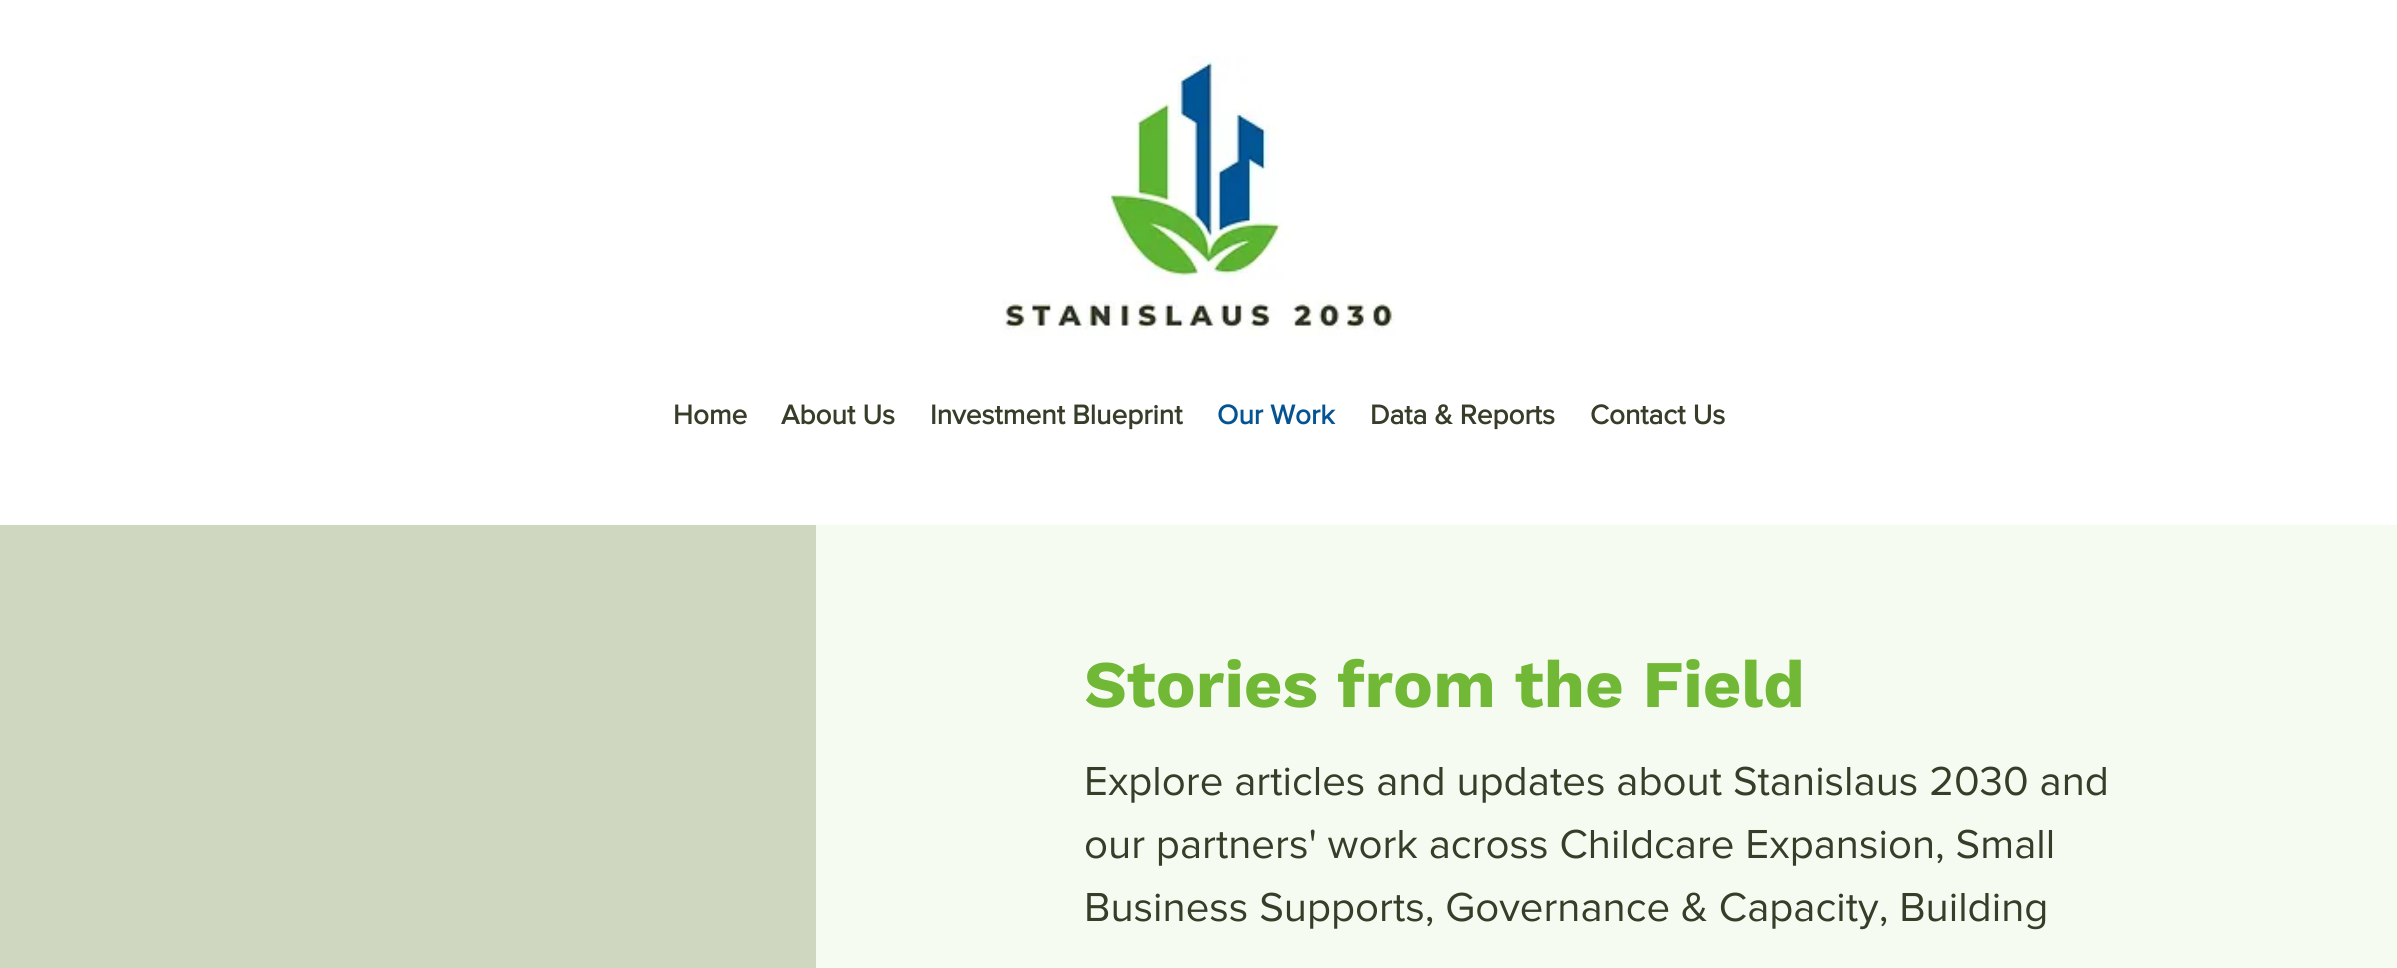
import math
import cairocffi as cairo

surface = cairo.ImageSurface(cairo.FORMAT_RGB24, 2397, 968)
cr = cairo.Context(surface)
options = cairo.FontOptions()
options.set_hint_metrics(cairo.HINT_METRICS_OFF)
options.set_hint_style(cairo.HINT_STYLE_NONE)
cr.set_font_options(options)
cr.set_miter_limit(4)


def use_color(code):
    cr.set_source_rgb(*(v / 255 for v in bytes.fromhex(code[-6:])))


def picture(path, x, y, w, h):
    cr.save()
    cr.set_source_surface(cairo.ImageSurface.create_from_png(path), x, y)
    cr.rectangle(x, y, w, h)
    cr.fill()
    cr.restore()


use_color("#ffffff")
cr.paint()
picture("img1.png", 1003, 56, 392, 280)
cr.select_font_face("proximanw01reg", cairo.FONT_SLANT_NORMAL, cairo.FONT_WEIGHT_BOLD)
cr.set_font_size(28)
use_color("#363d28")
cr.move_to(673, 424)
cr.show_text("Home")
cr.move_to(781, 424)
cr.show_text("About Us")
cr.move_to(930, 424)
cr.show_text("Investment Blueprint")
use_color("#045392")
cr.move_to(1217, 424)
cr.show_text("Our Work")
use_color("#363d28")
cr.move_to(1370, 424)
cr.show_text("Data & Reports")
cr.move_to(1590, 424)
cr.show_text("Contact Us")
use_color("#f6fbf1")
cr.rectangle(816, 525, 1581, 443)
cr.fill()
use_color("#cfd7c1")
cr.rectangle(0, 525, 816, 443)
cr.fill()
cr.select_font_face("Work Sans", cairo.FONT_SLANT_NORMAL, cairo.FONT_WEIGHT_BOLD)
cr.set_font_size(66.5)
use_color("#70b835")
cr.move_to(1084, 707)
cr.show_text("Stories from the Field")
cr.select_font_face("proximanw01reg")
cr.set_font_size(42)
use_color("#363d28")
cr.move_to(1084, 795)
cr.show_text("Explore articles and updates about Stanislaus 2030 and")
cr.move_to(1084, 858)
cr.show_text("our partners' work across Childcare Expansion, Small")
cr.move_to(1084, 921)
cr.show_text("Business Supports, Governance & Capacity, Building")
surface.write_to_png("result.png")
